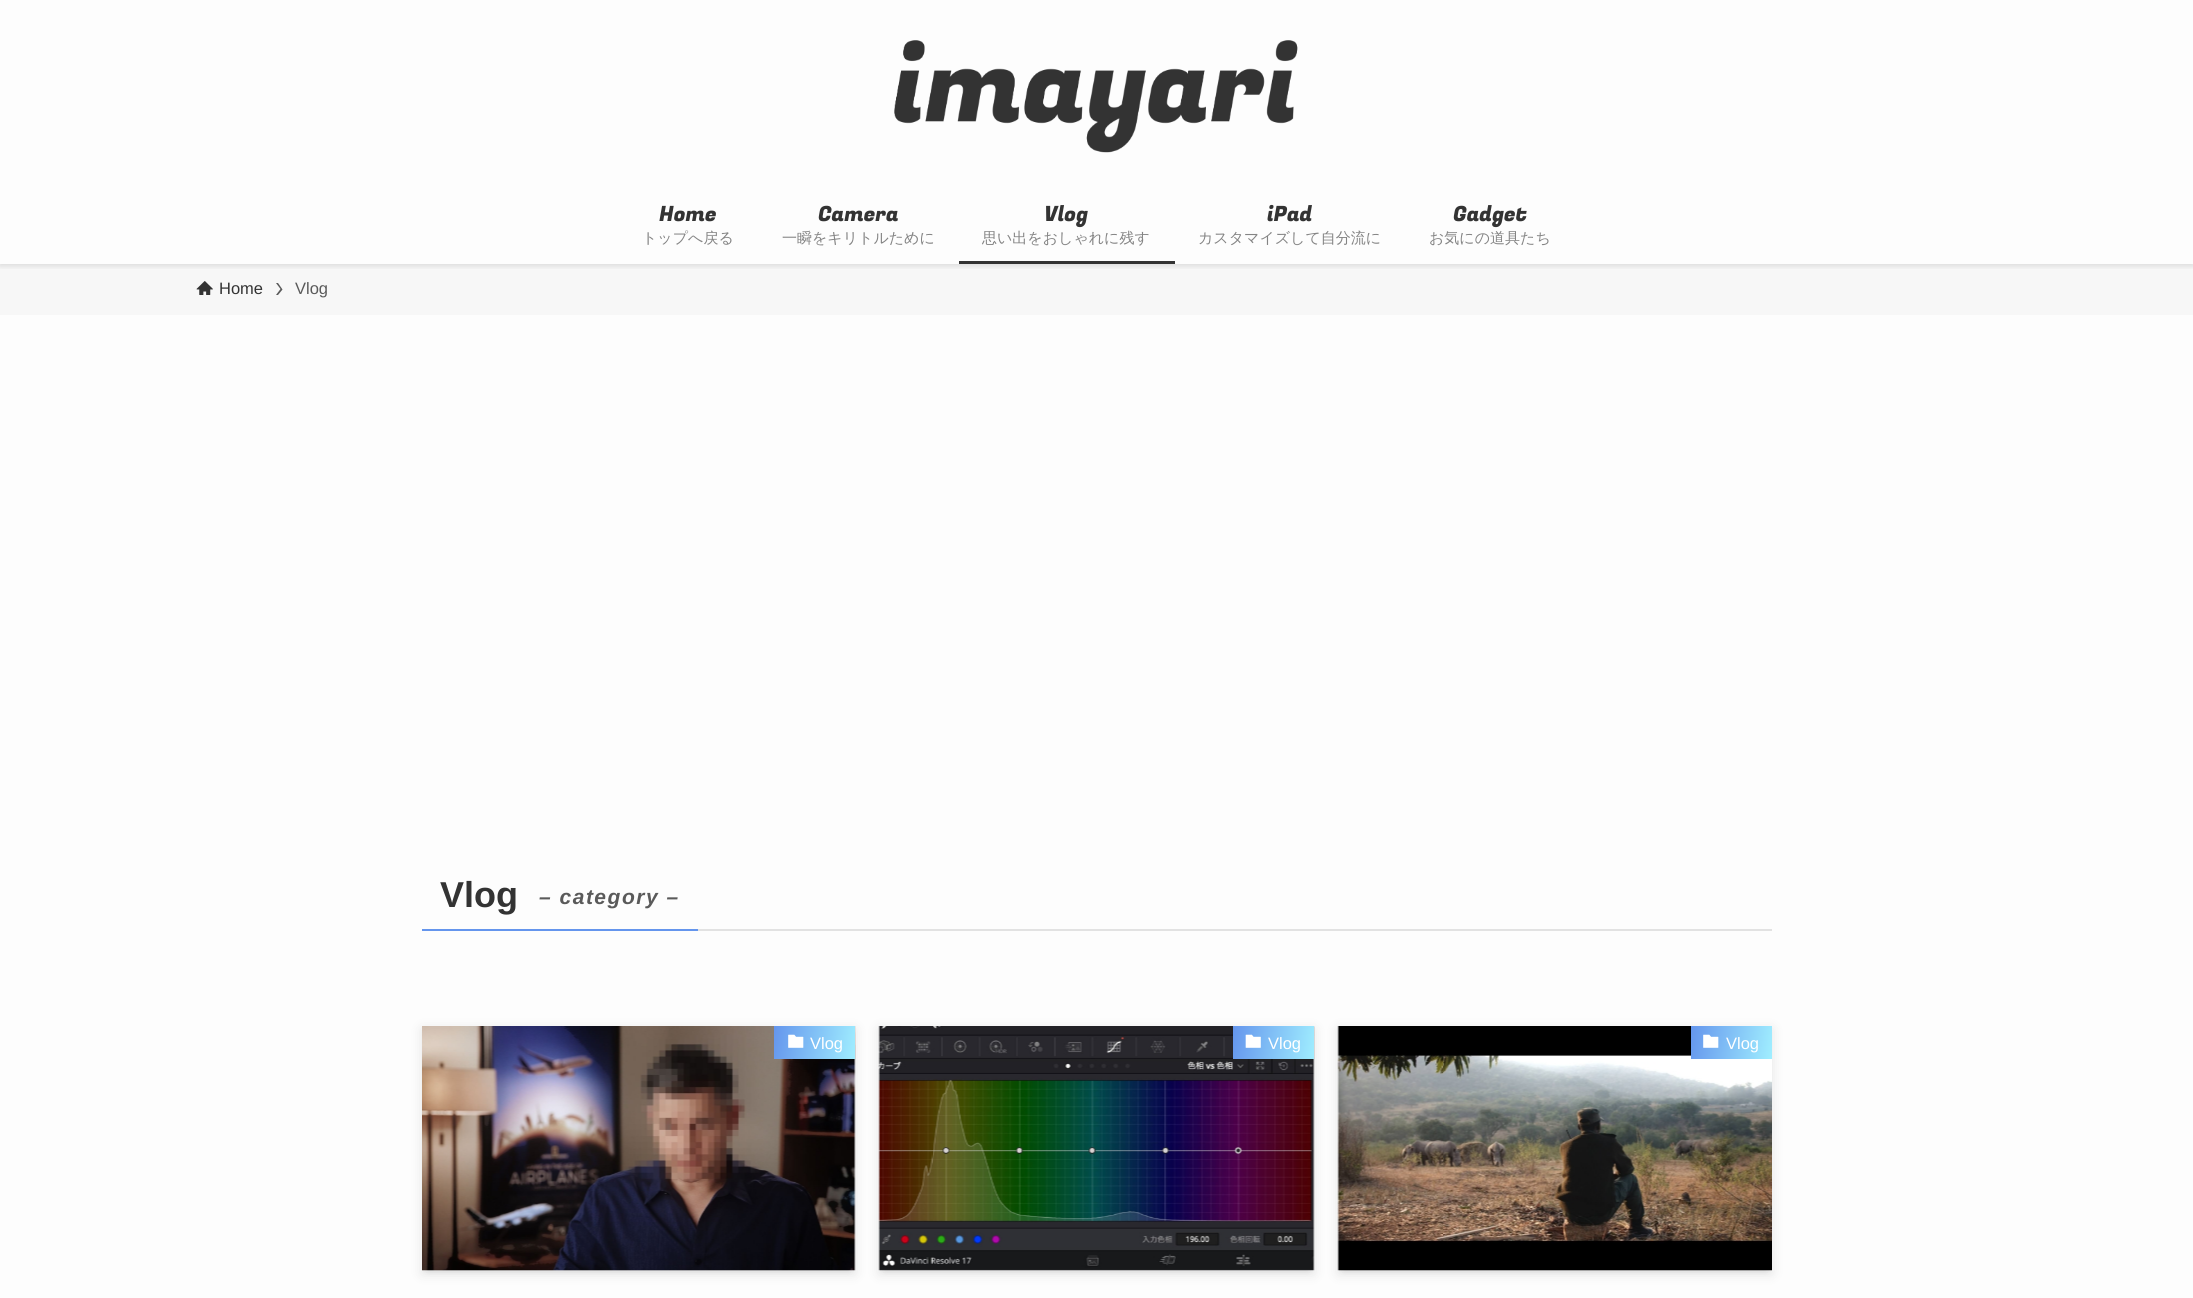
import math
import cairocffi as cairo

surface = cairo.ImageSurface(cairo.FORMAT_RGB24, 2193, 1298)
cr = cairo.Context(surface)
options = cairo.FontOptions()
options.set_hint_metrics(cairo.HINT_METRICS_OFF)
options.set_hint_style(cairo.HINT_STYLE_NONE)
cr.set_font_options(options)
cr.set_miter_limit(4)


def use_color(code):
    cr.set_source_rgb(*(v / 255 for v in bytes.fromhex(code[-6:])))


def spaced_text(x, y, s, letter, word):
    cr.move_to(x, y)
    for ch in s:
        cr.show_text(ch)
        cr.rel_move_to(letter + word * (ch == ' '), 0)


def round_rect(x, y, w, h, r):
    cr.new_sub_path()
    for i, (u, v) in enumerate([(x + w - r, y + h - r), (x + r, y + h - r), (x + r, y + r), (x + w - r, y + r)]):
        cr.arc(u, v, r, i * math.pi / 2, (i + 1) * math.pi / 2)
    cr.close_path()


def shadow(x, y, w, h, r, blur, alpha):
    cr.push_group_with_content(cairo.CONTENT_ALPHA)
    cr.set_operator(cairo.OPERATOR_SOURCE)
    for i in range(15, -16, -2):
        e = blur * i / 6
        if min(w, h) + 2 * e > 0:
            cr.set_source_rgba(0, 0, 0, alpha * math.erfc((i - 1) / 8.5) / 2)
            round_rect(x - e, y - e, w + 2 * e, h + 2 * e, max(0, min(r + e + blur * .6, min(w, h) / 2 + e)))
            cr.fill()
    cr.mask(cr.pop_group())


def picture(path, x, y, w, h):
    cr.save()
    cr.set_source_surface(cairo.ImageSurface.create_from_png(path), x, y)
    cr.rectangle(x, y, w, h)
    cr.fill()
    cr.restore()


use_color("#fdfdfd")
cr.paint()
use_color("#f7f7f7")
cr.rectangle(0, 264, 2193, 51)
cr.fill()
cr.save()
cr.rectangle(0, 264, 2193, 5)
cr.clip()
use_color("#000000")
shadow(0, 2, 2193, 264, 0, 3, 0.12)
cr.restore()
picture("img1.png", 894, 40, 404, 113)
cr.select_font_face("Fugaz One")
cr.set_font_size(21)
use_color("#333333")
cr.move_to(659, 221)
cr.show_text("Home")
cr.select_font_face("WenQuanYi Zen Hei Medium")
cr.set_font_size(15)
use_color("#848484")
cr.move_to(642, 243)
cr.show_text("トップへ戻る")
cr.select_font_face("Fugaz One")
cr.set_font_size(21)
use_color("#333333")
cr.move_to(818, 221)
cr.show_text("Camera")
cr.select_font_face("WenQuanYi Zen Hei Medium")
cr.set_font_size(15)
use_color("#848484")
cr.move_to(782, 243)
cr.show_text("一瞬をキリトルために")
cr.select_font_face("Fugaz One")
cr.set_font_size(21)
use_color("#333333")
cr.move_to(1044, 221)
cr.show_text("Vlog")
cr.select_font_face("WenQuanYi Zen Hei Medium")
cr.set_font_size(15)
use_color("#848484")
cr.move_to(982, 243)
cr.show_text("思い出をおしゃれに残す")
use_color("#333333")
cr.rectangle(959, 261, 216, 3)
cr.fill()
cr.select_font_face("Fugaz One")
cr.set_font_size(21)
cr.move_to(1267, 221)
cr.show_text("iPad")
cr.select_font_face("WenQuanYi Zen Hei Medium")
cr.set_font_size(15)
use_color("#848484")
cr.move_to(1198, 243)
cr.show_text("カスタマイズして自分流に")
cr.select_font_face("Fugaz One")
cr.set_font_size(21)
use_color("#333333")
cr.move_to(1453, 221)
cr.show_text("Gadget")
cr.select_font_face("WenQuanYi Zen Hei Medium")
cr.set_font_size(15)
use_color("#848484")
cr.move_to(1429, 243)
cr.show_text("お気にの道具たち")
picture("img2.png", 196, 281, 17, 14)
cr.select_font_face("Liberation Sans")
cr.set_font_size(16.5)
use_color("#333333")
cr.move_to(219, 294)
cr.show_text("Home")
use_color("#5a5a5a")
cr.new_path()
cr.move_to(278, 283)
cr.line_to(276, 283)
cr.line_to(280.5, 289)
cr.line_to(276, 295)
cr.line_to(278, 295)
cr.line_to(282.5, 289.5)
cr.close_path()
cr.fill()
cr.move_to(295, 294)
cr.show_text("Vlog")
use_color("#e2e2e2")
cr.rectangle(698, 929, 1074, 2)
cr.fill()
use_color("#6495ed")
cr.rectangle(422, 929, 276, 2)
cr.fill()
cr.select_font_face("Liberation Sans", cairo.FONT_SLANT_NORMAL, cairo.FONT_WEIGHT_BOLD)
cr.set_font_size(36)
use_color("#333333")
cr.move_to(440, 907)
cr.show_text("Vlog")
cr.select_font_face("Liberation Sans", cairo.FONT_SLANT_ITALIC, cairo.FONT_WEIGHT_BOLD)
cr.set_font_size(21)
use_color("#5a5a5a")
spaced_text(539, 904, "– category –", 1.5, 0)
use_color("#000000")
shadow(428, 1038, 421, 233, 0, 3, 0.1)
shadow(422, 1029, 433, 245, 0, 6, 0.1)
picture("img3.png", 422, 1026, 434, 245)
gradient = cairo.LinearGradient(772, 1035, 857, 1050)
gradient.add_color_stop_rgba(0, 0.392, 0.584, 0.929, 1)
gradient.add_color_stop_rgba(1, 0.627, 0.933, 1, 1)
cr.set_source(gradient)
cr.rectangle(774, 1026, 81, 33)
cr.fill()
picture("img4.png", 788, 1034, 16, 14)
cr.select_font_face("Liberation Sans")
cr.set_font_size(16.5)
use_color("#ffffff")
cr.move_to(810, 1049)
cr.show_text("Vlog")
use_color("#000000")
shadow(885, 1038, 423, 233, 0, 3, 0.1)
shadow(879, 1029, 435, 245, 0, 6, 0.1)
picture("img5.png", 878, 1026, 437, 245)
gradient = cairo.LinearGradient(1231, 1035, 1316, 1050)
gradient.add_color_stop_rgba(0, 0.392, 0.584, 0.929, 1)
gradient.add_color_stop_rgba(1, 0.627, 0.933, 1, 1)
cr.set_source(gradient)
cr.rectangle(1233, 1026, 81, 33)
cr.fill()
picture("img6.png", 1245, 1034, 16, 14)
use_color("#ffffff")
cr.move_to(1268, 1049)
cr.show_text("Vlog")
use_color("#000000")
shadow(1344, 1038, 422, 233, 0, 3, 0.1)
shadow(1338, 1029, 434, 245, 0, 6, 0.1)
picture("img7.png", 1337, 1026, 435, 245)
gradient = cairo.LinearGradient(1689, 1035, 1773, 1050)
gradient.add_color_stop_rgba(0, 0.392, 0.584, 0.929, 1)
gradient.add_color_stop_rgba(1, 0.627, 0.933, 1, 1)
cr.set_source(gradient)
cr.rectangle(1691, 1026, 81, 33)
cr.fill()
picture("img8.png", 1703, 1034, 16, 14)
use_color("#ffffff")
cr.move_to(1726, 1049)
cr.show_text("Vlog")
surface.write_to_png("result.png")
